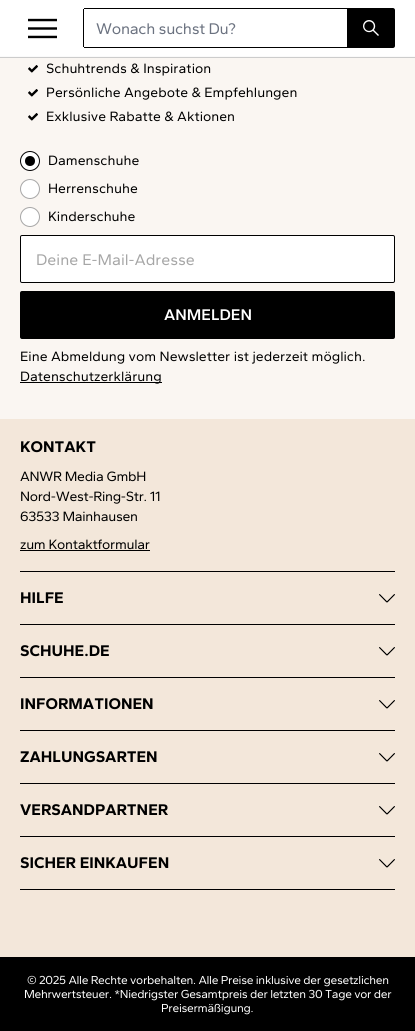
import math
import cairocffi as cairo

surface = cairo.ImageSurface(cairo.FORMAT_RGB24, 415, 1031)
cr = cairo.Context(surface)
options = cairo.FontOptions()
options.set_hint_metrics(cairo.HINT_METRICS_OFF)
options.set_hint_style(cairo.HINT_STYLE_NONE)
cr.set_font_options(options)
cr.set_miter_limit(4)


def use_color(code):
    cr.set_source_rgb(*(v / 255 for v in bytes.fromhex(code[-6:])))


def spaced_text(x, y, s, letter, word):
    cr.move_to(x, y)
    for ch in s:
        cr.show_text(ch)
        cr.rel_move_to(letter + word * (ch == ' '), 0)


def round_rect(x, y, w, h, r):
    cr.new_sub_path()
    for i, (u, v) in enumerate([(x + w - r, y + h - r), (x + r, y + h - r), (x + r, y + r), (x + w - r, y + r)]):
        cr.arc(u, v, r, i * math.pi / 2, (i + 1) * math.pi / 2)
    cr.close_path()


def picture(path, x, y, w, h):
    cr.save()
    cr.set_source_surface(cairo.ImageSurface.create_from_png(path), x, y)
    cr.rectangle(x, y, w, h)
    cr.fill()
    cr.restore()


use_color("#faf6f2")
cr.paint()
use_color("#cccccc")
cr.rectangle(0, 57, 415, 1)
cr.fill()
use_color("#ffffff")
cr.rectangle(0, 0, 415, 56)
cr.fill()
use_color("#fafafa")
cr.rectangle(0, 56, 415, 1)
cr.fill()
picture("img1.png", 28, 18, 29, 21)
use_color("#000000")
cr.rectangle(84, 8, 263, 1)
cr.fill()
cr.rectangle(84, 47, 263, 1)
cr.fill()
cr.rectangle(83, 9, 1, 38)
cr.fill()
cr.select_font_face("Gantari")
cr.set_font_size(16)
use_color("#6b7280")
spaced_text(96, 34, "Wonach suchst Du?", -0.3, 0)
use_color("#000000")
cr.new_path()
cr.move_to(347, 8)
cr.line_to(393, 8)
cr.curve_to(394, 8, 395, 9, 395, 10)
cr.line_to(395, 46)
cr.curve_to(395, 47, 394, 48, 393, 48)
cr.line_to(347, 48)
cr.close_path()
cr.fill()
picture("img2.png", 363, 20, 16, 16)
picture("img3.png", 28, 65, 10, 8)
cr.set_font_size(14)
cr.move_to(46, 73)
cr.show_text("Schuhtrends & Inspiration")
picture("img3.png", 28, 89, 10, 8)
cr.move_to(46, 97)
cr.show_text("Persönliche Angebote & Empfehlungen")
picture("img3.png", 28, 113, 10, 8)
cr.move_to(46, 121)
cr.show_text("Exklusive Rabatte & Aktionen")
use_color("#ffffff")
cr.new_path()
cr.arc(30, 161, 9.5, 0, 2 * math.pi)
cr.fill_preserve()
use_color("#000000")
cr.set_line_width(1)
cr.stroke()
cr.arc(30, 161, 5, 0, 2 * math.pi)
cr.fill()
cr.move_to(48, 165)
cr.show_text("Damenschuhe")
use_color("#ffffff")
cr.new_path()
cr.arc(30, 189, 9.5, 0, 2 * math.pi)
cr.fill_preserve()
use_color("#a6a6a6")
cr.stroke()
use_color("#000000")
cr.move_to(48, 193)
cr.show_text("Herrenschuhe")
use_color("#ffffff")
cr.new_path()
cr.arc(30, 217, 9.5, 0, 2 * math.pi)
cr.fill_preserve()
use_color("#a6a6a6")
cr.stroke()
use_color("#000000")
cr.move_to(48, 221)
cr.show_text("Kinderschuhe")
use_color("#ffffff")
round_rect(20.5, 235.5, 374, 47, 1.5)
cr.fill_preserve()
use_color("#000000")
cr.stroke()
cr.set_font_size(16)
use_color("#a6a6a6")
cr.move_to(36, 265)
cr.show_text("Deine E-Mail-Adresse")
use_color("#000000")
round_rect(20, 291, 375, 48, 2)
cr.fill()
cr.select_font_face("Gantari SemiBold")
use_color("#ffffff")
cr.move_to(164, 320)
cr.show_text("ANMELDEN")
cr.select_font_face("Gantari")
cr.set_font_size(14)
use_color("#000000")
cr.move_to(20, 361)
cr.show_text("Eine Abmeldung vom Newsletter ist jederzeit möglich.")
cr.rectangle(20, 382, 142, 1)
cr.fill()
cr.move_to(20, 381)
cr.show_text("Datenschutzerklärung")
use_color("#f3e7da")
cr.rectangle(0, 419, 415, 538)
cr.fill()
use_color("#000000")
cr.rectangle(20, 571, 375, 1)
cr.fill()
cr.select_font_face("Gantari", cairo.FONT_SLANT_NORMAL, cairo.FONT_WEIGHT_BOLD)
cr.set_font_size(16)
cr.move_to(20, 452)
cr.show_text("KONTAKT")
cr.select_font_face("Gantari")
cr.set_font_size(14)
spaced_text(20, 481, "ANWR Media GmbH", -0.3, 0)
spaced_text(20, 501, "Nord-West-Ring-Str. 11", -0.3, 0)
spaced_text(20, 521, "63533 Mainhausen", -0.3, 0)
spaced_text(20, 549, "zum Kontaktformular", -0.3, 0)
cr.rectangle(20, 550, 130, 1)
cr.fill()
cr.rectangle(20, 624, 375, 1)
cr.fill()
cr.select_font_face("Gantari", cairo.FONT_SLANT_NORMAL, cairo.FONT_WEIGHT_BOLD)
cr.set_font_size(16)
cr.move_to(20, 603)
cr.show_text("HILFE")
picture("img4.png", 379, 594, 16, 9)
cr.rectangle(20, 677, 375, 1)
cr.fill()
cr.move_to(20, 656)
cr.show_text("SCHUHE.DE")
picture("img4.png", 379, 647, 16, 9)
cr.rectangle(20, 730, 375, 1)
cr.fill()
cr.move_to(20, 709)
cr.show_text("INFORMATIONEN")
picture("img4.png", 379, 700, 16, 9)
cr.rectangle(20, 783, 375, 1)
cr.fill()
cr.move_to(20, 762)
cr.show_text("ZAHLUNGSARTEN")
picture("img4.png", 379, 753, 16, 9)
cr.rectangle(20, 836, 375, 1)
cr.fill()
cr.move_to(20, 815)
cr.show_text("VERSANDPARTNER")
picture("img4.png", 379, 806, 16, 9)
cr.rectangle(20, 889, 375, 1)
cr.fill()
cr.move_to(20, 868)
cr.show_text("SICHER EINKAUFEN")
picture("img4.png", 379, 859, 16, 9)
cr.rectangle(0, 957, 415, 74)
cr.fill()
cr.select_font_face("Gantari")
cr.set_font_size(12)
use_color("#ffffff")
spaced_text(27, 984, "© 2025 Alle Rechte vorbehalten. Alle Preise inklusive der gesetzlichen", -0.3, 0)
spaced_text(24, 998, "Mehrwertsteuer. *Niedrigster Gesamtpreis der letzten 30 Tage vor der", -0.3, 0)
spaced_text(161, 1012, "Preisermäßigung.", -0.3, 0)
surface.write_to_png("result.png")
